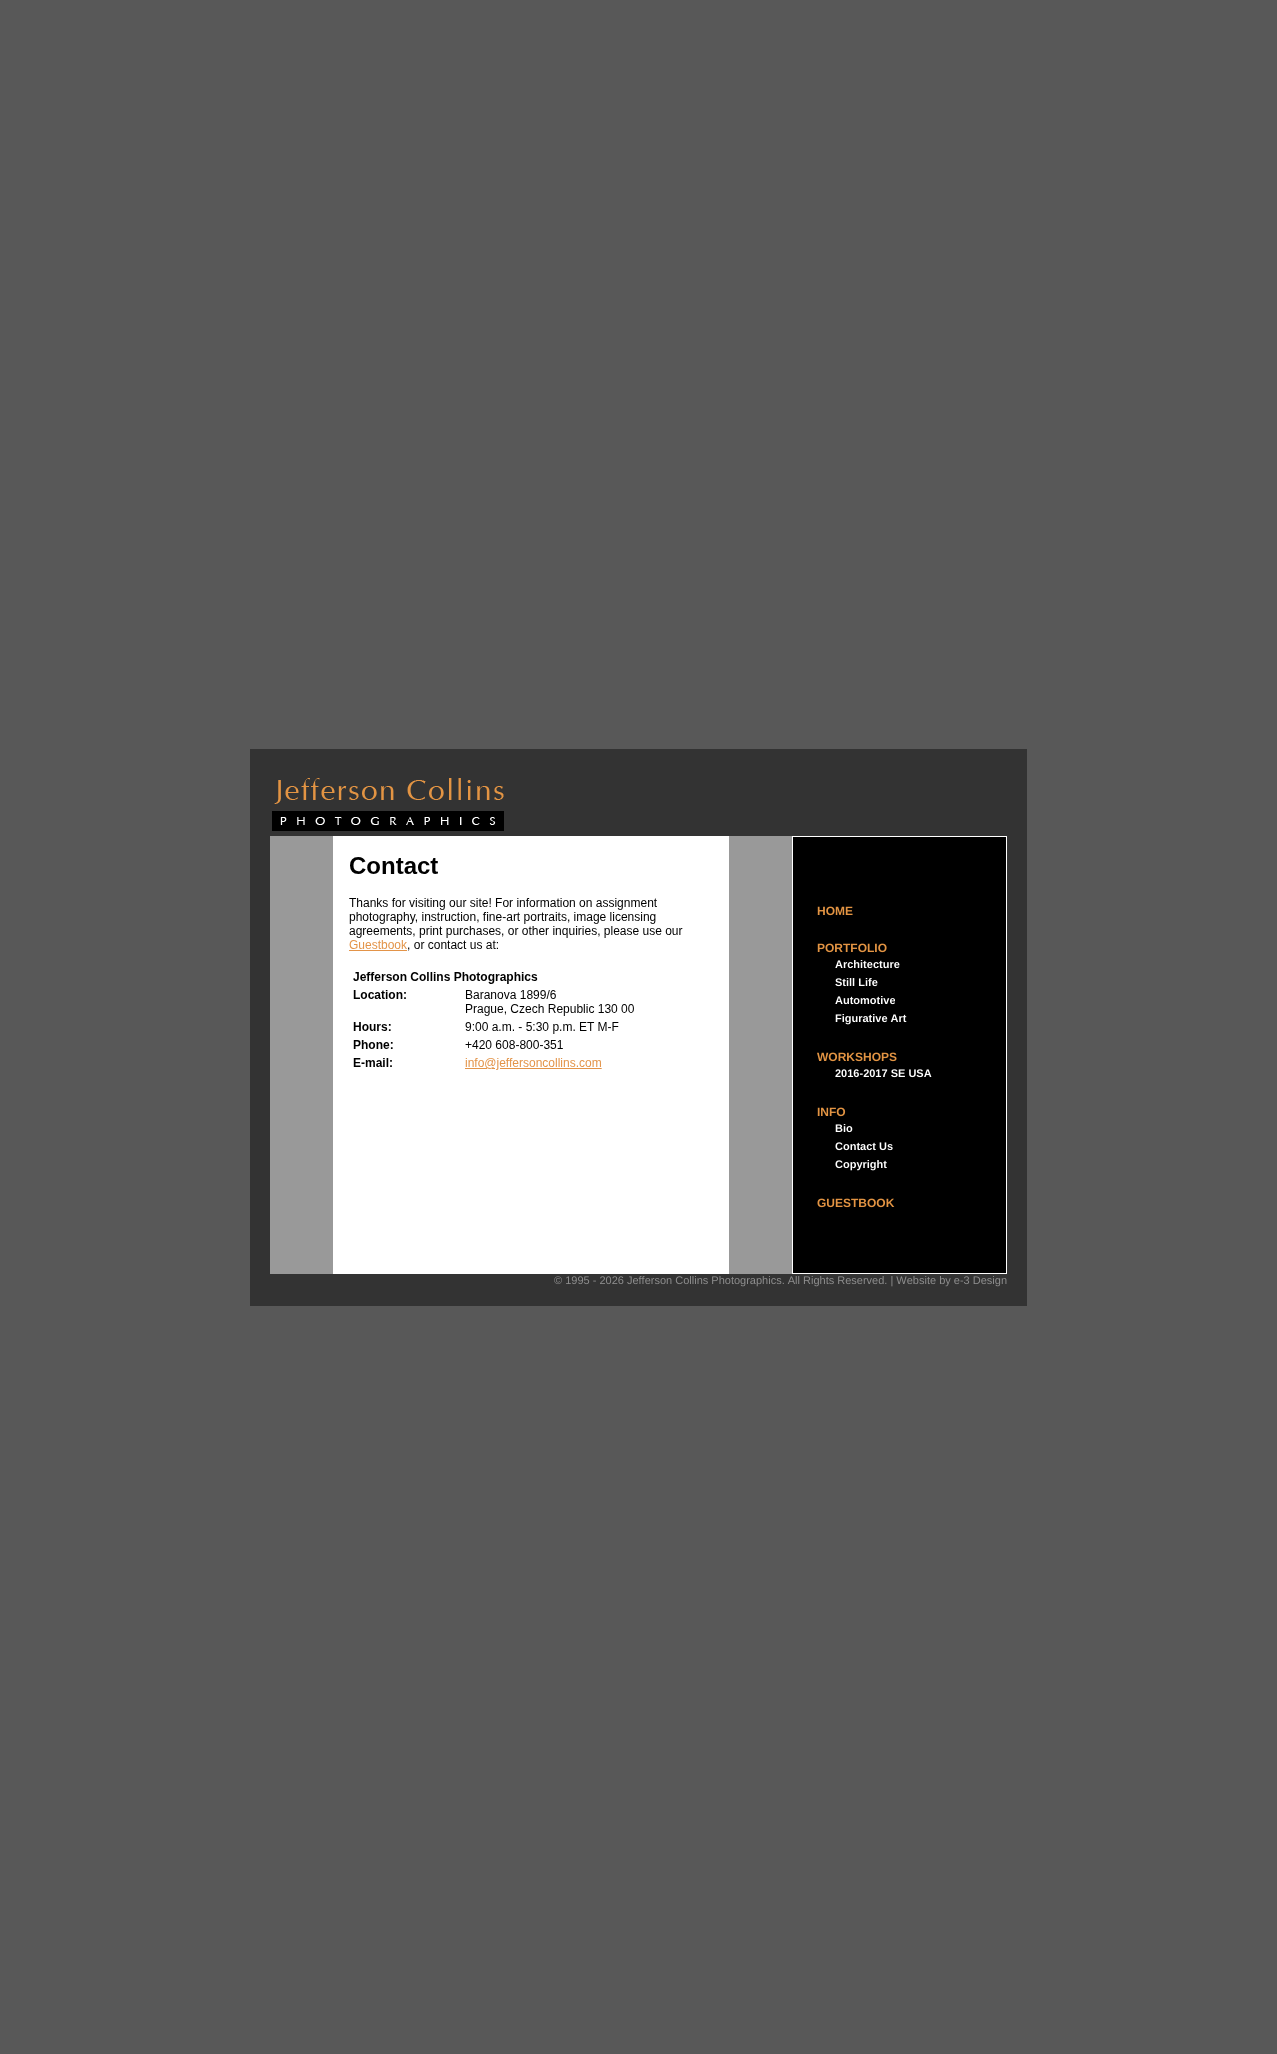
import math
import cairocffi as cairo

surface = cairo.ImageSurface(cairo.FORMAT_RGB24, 1277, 2054)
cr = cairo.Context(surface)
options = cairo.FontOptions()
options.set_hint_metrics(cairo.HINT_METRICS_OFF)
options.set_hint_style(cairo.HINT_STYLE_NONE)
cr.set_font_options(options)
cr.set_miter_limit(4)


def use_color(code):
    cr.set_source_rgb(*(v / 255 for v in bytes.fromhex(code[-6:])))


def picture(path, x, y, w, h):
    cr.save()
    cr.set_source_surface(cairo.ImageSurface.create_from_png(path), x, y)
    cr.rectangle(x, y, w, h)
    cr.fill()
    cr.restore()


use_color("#585858")
cr.paint()
use_color("#333333")
cr.rectangle(250, 749, 777, 557)
cr.fill()
picture("img1.png", 272, 778, 232, 53)
use_color("#999999")
cr.rectangle(270, 836, 63, 438)
cr.fill()
use_color("#ffffff")
cr.rectangle(333, 836, 396, 438)
cr.fill()
picture("img2.png", 349, 857, 334, 213)
use_color("#999999")
cr.rectangle(729, 836, 63, 438)
cr.fill()
use_color("#000000")
cr.rectangle(792.5, 836.5, 214, 437)
cr.fill_preserve()
use_color("#ffffff")
cr.set_line_width(1)
cr.stroke()
cr.select_font_face("Liberation Sans", cairo.FONT_SLANT_NORMAL, cairo.FONT_WEIGHT_BOLD)
cr.set_font_size(12)
use_color("#e39443")
cr.move_to(817, 915)
cr.show_text("HOME")
cr.move_to(817, 952)
cr.show_text("PORTFOLIO")
cr.set_font_size(11)
use_color("#ffffff")
cr.move_to(835, 968)
cr.show_text("Architecture")
cr.move_to(835, 986)
cr.show_text("Still Life")
cr.move_to(835, 1004)
cr.show_text("Automotive")
cr.move_to(835, 1022)
cr.show_text("Figurative Art")
cr.set_font_size(12)
use_color("#e39443")
cr.move_to(817, 1061)
cr.show_text("WORKSHOPS")
cr.set_font_size(11)
use_color("#ffffff")
cr.move_to(835, 1077)
cr.show_text("2016-2017 SE USA")
cr.set_font_size(12)
use_color("#e39443")
cr.move_to(817, 1116)
cr.show_text("INFO")
cr.set_font_size(11)
use_color("#ffffff")
cr.move_to(835, 1132)
cr.show_text("Bio")
cr.move_to(835, 1150)
cr.show_text("Contact Us")
cr.move_to(835, 1168)
cr.show_text("Copyright")
cr.set_font_size(12)
use_color("#e39443")
cr.move_to(817, 1207)
cr.show_text("GUESTBOOK")
cr.select_font_face("Liberation Sans")
cr.set_font_size(11)
use_color("#8e8e8e")
cr.move_to(554, 1284)
cr.show_text("© 1995 - 2026 Jefferson Collins Photographics. All Rights Reserved. | Website by e-3 Design")
surface.write_to_png("result.png")
